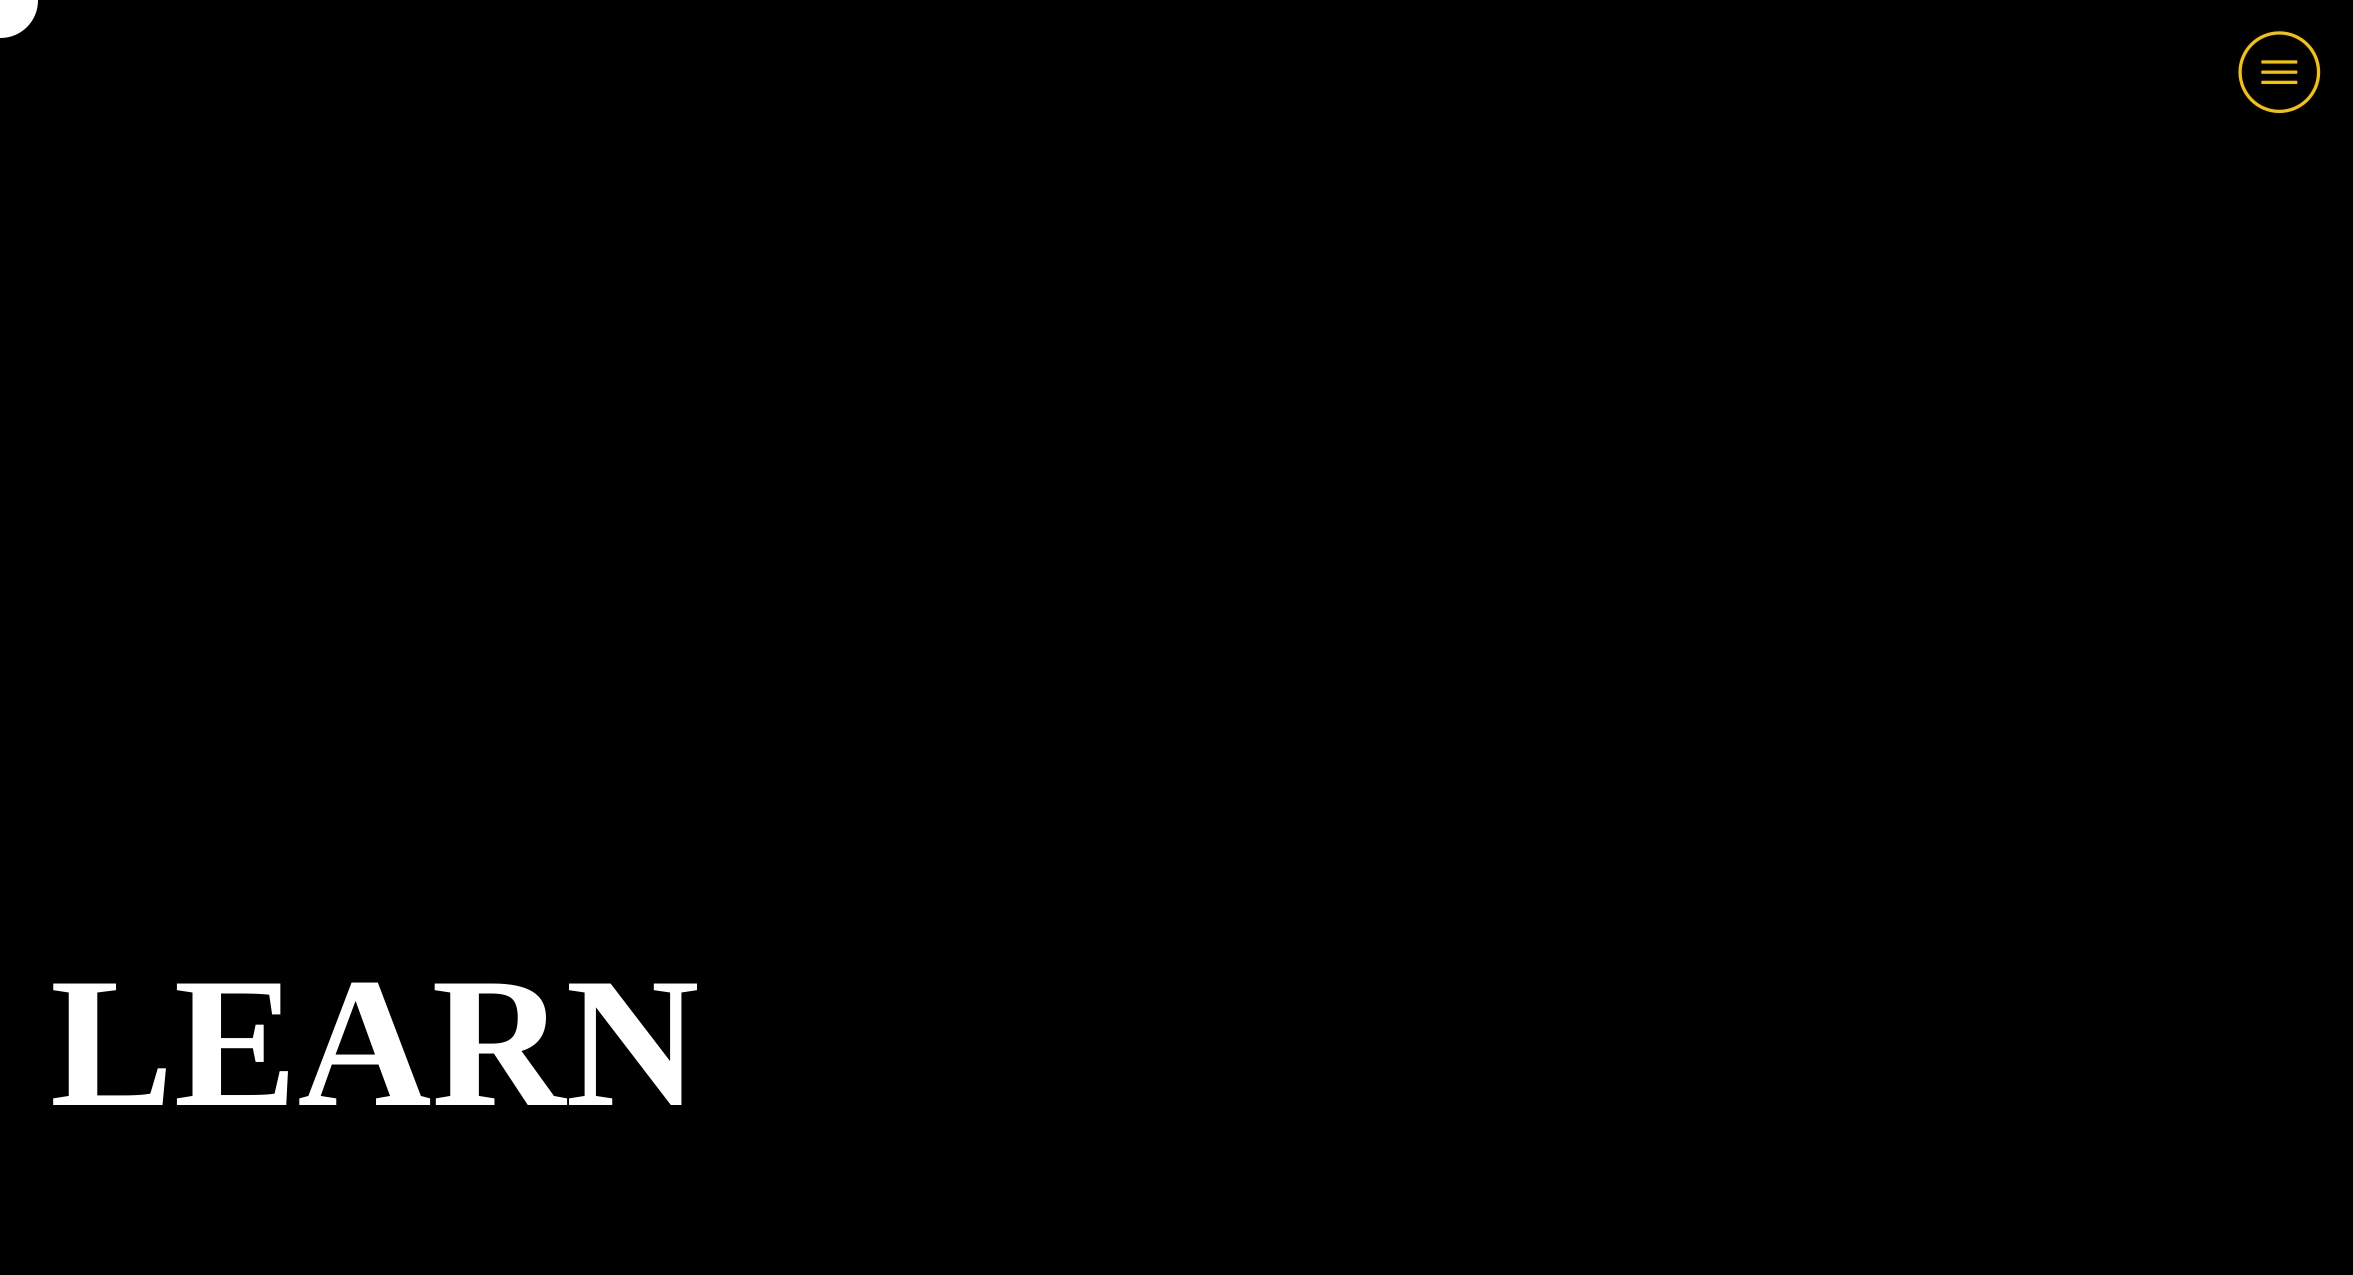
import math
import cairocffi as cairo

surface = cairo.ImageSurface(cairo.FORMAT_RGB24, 2353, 1275)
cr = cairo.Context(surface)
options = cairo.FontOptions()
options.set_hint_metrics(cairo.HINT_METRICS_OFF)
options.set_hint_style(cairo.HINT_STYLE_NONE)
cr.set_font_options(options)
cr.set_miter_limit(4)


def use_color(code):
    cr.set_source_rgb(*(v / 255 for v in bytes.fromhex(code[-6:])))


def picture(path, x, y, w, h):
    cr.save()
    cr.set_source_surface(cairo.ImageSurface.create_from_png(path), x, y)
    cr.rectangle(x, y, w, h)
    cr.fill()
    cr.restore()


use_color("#000000")
cr.paint()
use_color("#ffffff")
cr.arc(0.5, 0.5, 37.5, 0, 2 * math.pi)
cr.fill()
picture("img1.png", 2238, 31, 83, 83)
cr.select_font_face("Liberation Serif", cairo.FONT_SLANT_NORMAL, cairo.FONT_WEIGHT_BOLD)
cr.set_font_size(185.5)
cr.move_to(50, 1105)
cr.show_text("LEARN")
surface.write_to_png("result.png")
